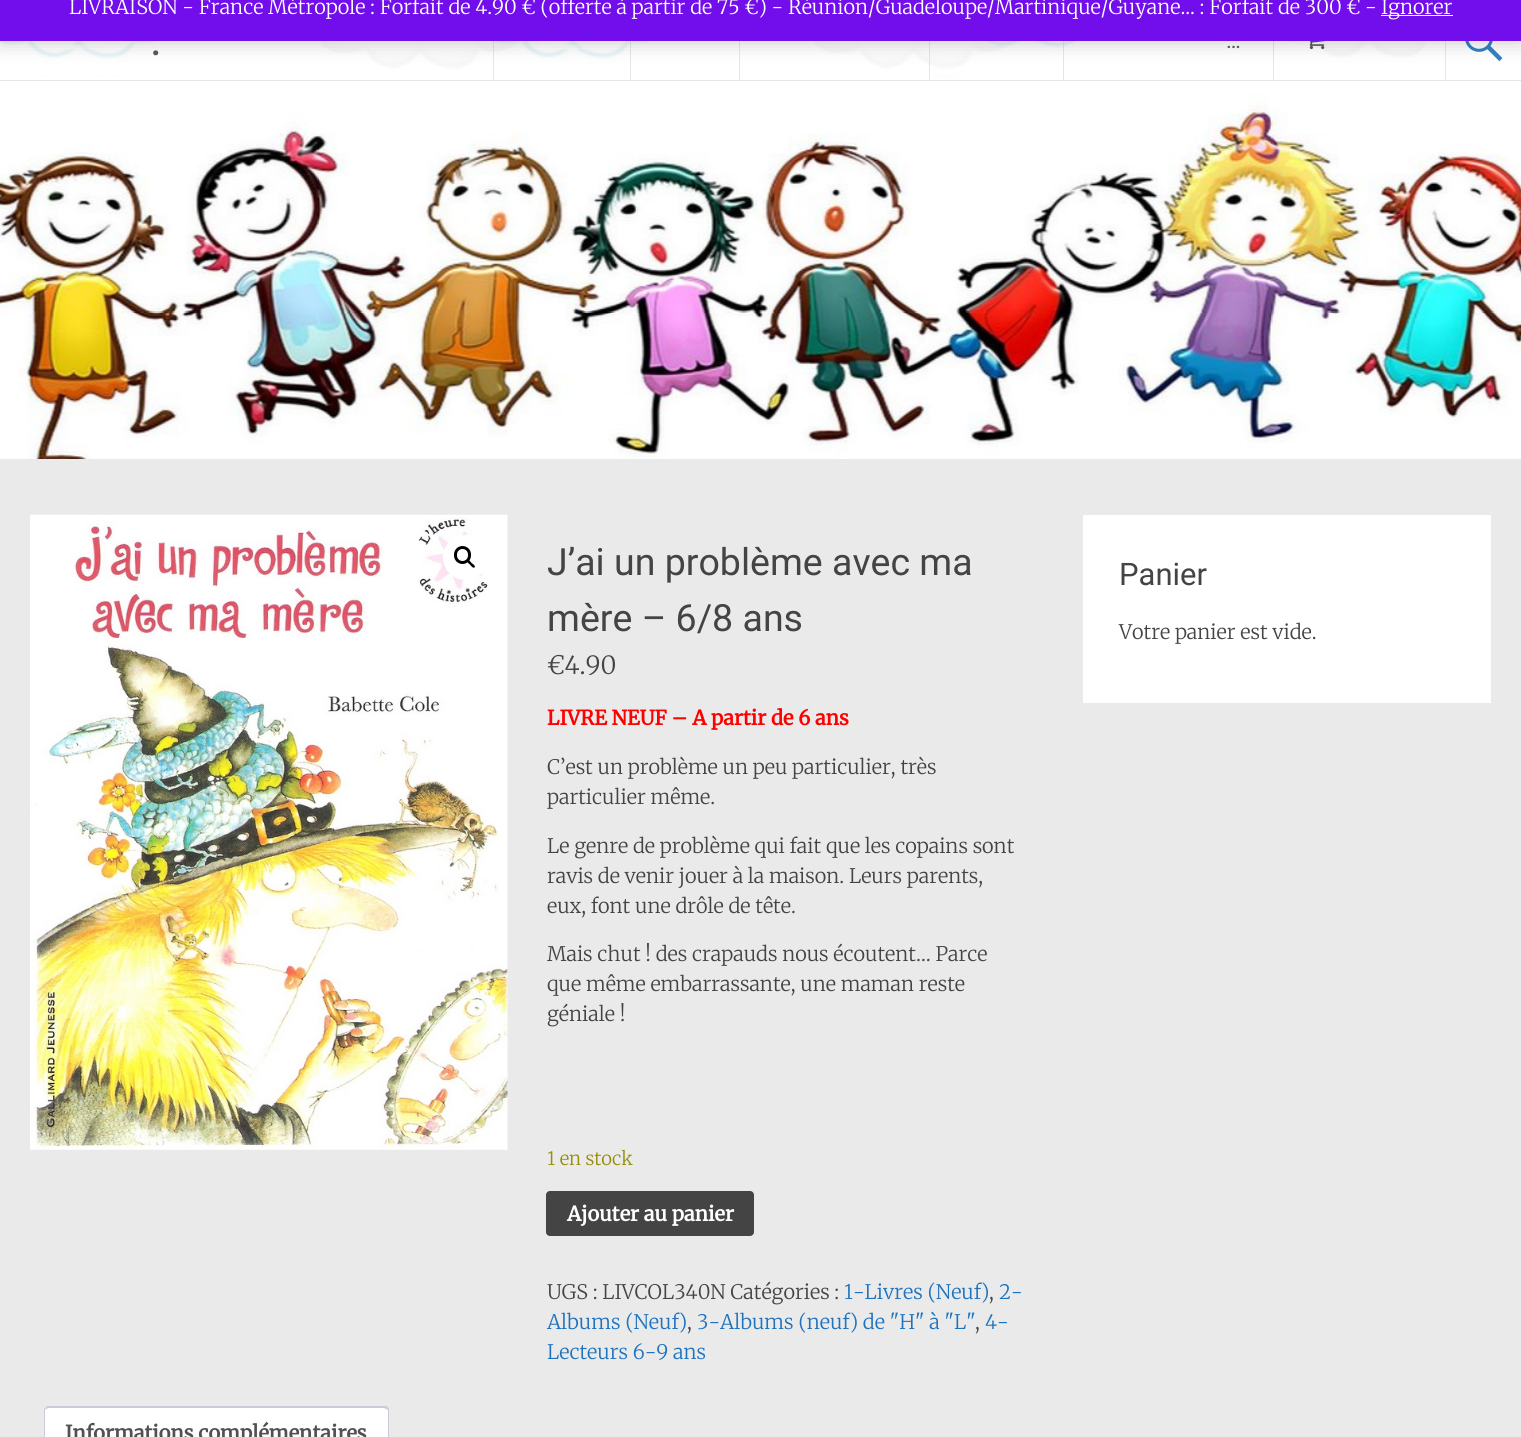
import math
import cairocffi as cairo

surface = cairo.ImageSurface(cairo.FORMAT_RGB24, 1521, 1437)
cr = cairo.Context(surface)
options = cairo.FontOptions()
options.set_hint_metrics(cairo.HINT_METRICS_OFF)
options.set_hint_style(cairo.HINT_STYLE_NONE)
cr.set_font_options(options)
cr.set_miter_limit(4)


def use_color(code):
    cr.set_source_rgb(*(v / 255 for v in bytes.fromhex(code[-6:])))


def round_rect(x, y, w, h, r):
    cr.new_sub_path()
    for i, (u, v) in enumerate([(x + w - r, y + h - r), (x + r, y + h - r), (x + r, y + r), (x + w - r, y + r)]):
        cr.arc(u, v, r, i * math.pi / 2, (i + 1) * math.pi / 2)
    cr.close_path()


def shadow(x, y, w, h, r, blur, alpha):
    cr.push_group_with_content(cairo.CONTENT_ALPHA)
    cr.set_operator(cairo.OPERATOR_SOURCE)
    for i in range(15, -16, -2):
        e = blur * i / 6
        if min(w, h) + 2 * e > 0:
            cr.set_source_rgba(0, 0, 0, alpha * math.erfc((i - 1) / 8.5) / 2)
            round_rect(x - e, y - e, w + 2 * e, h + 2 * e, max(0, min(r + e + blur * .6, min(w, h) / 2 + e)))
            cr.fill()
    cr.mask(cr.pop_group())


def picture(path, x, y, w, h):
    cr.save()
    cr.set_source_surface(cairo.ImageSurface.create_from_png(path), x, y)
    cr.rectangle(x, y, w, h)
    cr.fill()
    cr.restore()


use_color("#ffffff")
cr.paint()
picture("img1.png", 0, 41, 1521, 418)
cr.set_source_rgba(1, 1, 1, 0.9)
cr.rectangle(0, 41, 1467, 34)
cr.fill()
cr.set_source_rgba(0.882, 0.894, 0.902, 0.9)
cr.rectangle(493, 41, 1, 39)
cr.fill()
cr.rectangle(630, 41, 1, 39)
cr.fill()
cr.rectangle(739, 41, 1, 39)
cr.fill()
cr.rectangle(929, 41, 1, 39)
cr.fill()
cr.rectangle(1063, 41, 1, 39)
cr.fill()
cr.rectangle(1273, 41, 1, 39)
cr.fill()
picture("img2.png", 1309, 41, 16, 9)
cr.rectangle(1445, 41, 1, 39)
cr.fill()
picture("img3.png", 1465, 41, 38, 21)
use_color("#000000")
shadow(0, -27, 1521, 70, 0, 10, 0.2)
use_color("#720eec")
cr.rectangle(0, 0, 1521, 41)
cr.fill()
cr.select_font_face("Merriweather Light")
cr.set_font_size(20)
use_color("#ffffff")
cr.move_to(69, 14)
cr.show_text("LIVRAISON - France Métropole : Forfait de 4.90 € (offerte à partir de 75 €) - Réunion/Guadeloupe/Martinique/Guyane... : Forfait de 300 € -")
use_color("#fcfbfe")
cr.rectangle(1381, 15, 72, 1)
cr.fill()
use_color("#ffffff")
cr.move_to(1381, 14)
cr.show_text("Ignorer")
use_color("#e4e7e8")
cr.rectangle(0, 80, 1521, 1)
cr.fill()
cr.select_font_face("Roboto")
cr.set_font_size(22)
use_color("#565757")
cr.move_to(1226, 48)
cr.show_text("…")
cr.set_font_size(45)
cr.move_to(150, 55)
cr.show_text(".")
use_color("#eaeaea")
cr.rectangle(0, 459, 1521, 978)
cr.fill()
picture("img4.png", 30, 514, 478, 636)
use_color("#ffffff")
cr.arc(465.5, 557.5, 22.5, 0, 2 * math.pi)
cr.fill()
round_rect(455.5, 547.5, 14, 15, 7)
use_color("#000000")
cr.set_line_width(3)
cr.stroke()
cr.new_path()
cr.move_to(467.5, 560)
cr.curve_to(468.5, 559, 471, 562, 471.5, 563)
cr.curve_to(472.5, 563.5, 476, 566, 474.5, 567.5)
cr.curve_to(473, 568.5, 470.5, 565.5, 470, 564.5)
cr.curve_to(469, 564, 466, 561.5, 467.5, 560)
cr.close_path()
cr.fill()
cr.set_font_size(37.5)
use_color("#444444")
cr.move_to(547, 575)
cr.show_text("J’ai un problème avec ma")
cr.move_to(547, 631)
cr.show_text("mère – 6/8 ans")
cr.select_font_face("Merriweather Light")
cr.set_font_size(25)
cr.move_to(547, 674)
cr.show_text("€4.90")
cr.select_font_face("Merriweather", cairo.FONT_SLANT_NORMAL, cairo.FONT_WEIGHT_BOLD)
cr.set_font_size(20)
use_color("#ff0000")
cr.move_to(547, 725)
cr.show_text("LIVRE NEUF – A partir de 6 ans")
cr.select_font_face("Merriweather Light")
use_color("#444444")
cr.move_to(547, 774)
cr.show_text("C’est un problème un peu particulier, très")
cr.move_to(547, 804)
cr.show_text("particulier même.")
cr.move_to(547, 853)
cr.show_text("Le genre de problème qui fait que les copains sont")
cr.move_to(547, 883)
cr.show_text("ravis de venir jouer à la maison. Leurs parents,")
cr.move_to(547, 913)
cr.show_text("eux, font une drôle de tête.")
cr.move_to(547, 961)
cr.show_text("Mais chut ! des crapauds nous écoutent… Parce")
cr.move_to(547, 991)
cr.show_text("que même embarrassante, une maman reste")
cr.move_to(547, 1021)
cr.show_text("géniale !")
cr.set_font_size(18.5)
use_color("#958e09")
cr.move_to(547, 1165)
cr.show_text("1 en stock")
use_color("#444444")
round_rect(546, 1191, 208, 45, 4)
cr.fill()
cr.select_font_face("Merriweather", cairo.FONT_SLANT_NORMAL, cairo.FONT_WEIGHT_BOLD)
cr.set_font_size(20)
use_color("#ffffff")
cr.move_to(567, 1221)
cr.show_text("Ajouter au panier")
cr.select_font_face("Merriweather Light")
use_color("#444444")
cr.move_to(547, 1299)
cr.show_text("UGS : LIVCOL340N Catégories :")
use_color("#1e73be")
cr.move_to(844, 1299)
cr.show_text("1-Livres (Neuf)")
cr.move_to(999, 1299)
cr.show_text("2-")
use_color("#444444")
cr.move_to(989, 1299)
cr.show_text(",")
use_color("#1e73be")
cr.move_to(547, 1329)
cr.show_text("Albums (Neuf)")
cr.move_to(697, 1329)
cr.show_text("3-Albums (neuf) de \"H\" à \"L\"")
cr.move_to(985, 1329)
cr.show_text("4-")
use_color("#444444")
cr.move_to(687, 1329)
cr.show_text(",")
cr.move_to(975, 1329)
cr.show_text(",")
use_color("#1e73be")
cr.move_to(547, 1359)
cr.show_text("Lecteurs 6-9 ans")
use_color("#ffffff")
cr.new_path()
cr.move_to(49, 1406)
cr.line_to(384, 1406)
cr.curve_to(387, 1406, 389, 1408, 389, 1411)
cr.line_to(389, 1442)
cr.line_to(44, 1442)
cr.line_to(44, 1411)
cr.curve_to(44, 1408, 46, 1406, 49, 1406)
cr.close_path()
cr.fill()
use_color("#cfc8d8")
cr.new_path()
cr.move_to(49, 1408)
cr.line_to(46, 1409)
cr.line_to(45, 1408)
cr.line_to(47, 1406)
cr.line_to(386, 1406)
cr.line_to(388, 1407)
cr.line_to(386, 1409)
cr.line_to(384, 1408)
cr.close_path()
cr.fill()
cr.new_path()
cr.move_to(388, 1407)
cr.line_to(389, 1409)
cr.line_to(389, 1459)
cr.line_to(388, 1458)
cr.line_to(388, 1410)
cr.line_to(386, 1409)
cr.close_path()
cr.fill()
cr.new_path()
cr.move_to(44, 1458)
cr.line_to(44, 1411)
cr.curve_to(44, 1410, 44, 1408, 45, 1408)
cr.line_to(46, 1409)
cr.line_to(45, 1410)
cr.line_to(45, 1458)
cr.close_path()
cr.fill()
cr.select_font_face("Merriweather", cairo.FONT_SLANT_NORMAL, cairo.FONT_WEIGHT_BOLD)
use_color("#515151")
cr.move_to(65, 1440)
cr.show_text("Informations complémentaires")
use_color("#ffffff")
cr.rectangle(1083, 515, 408, 188)
cr.fill()
cr.select_font_face("Roboto")
cr.set_font_size(31)
use_color("#444444")
cr.move_to(1119, 585)
cr.show_text("Panier")
cr.select_font_face("Merriweather Light")
cr.set_font_size(20)
cr.move_to(1119, 639)
cr.show_text("Votre panier est vide.")
surface.write_to_png("result.png")
